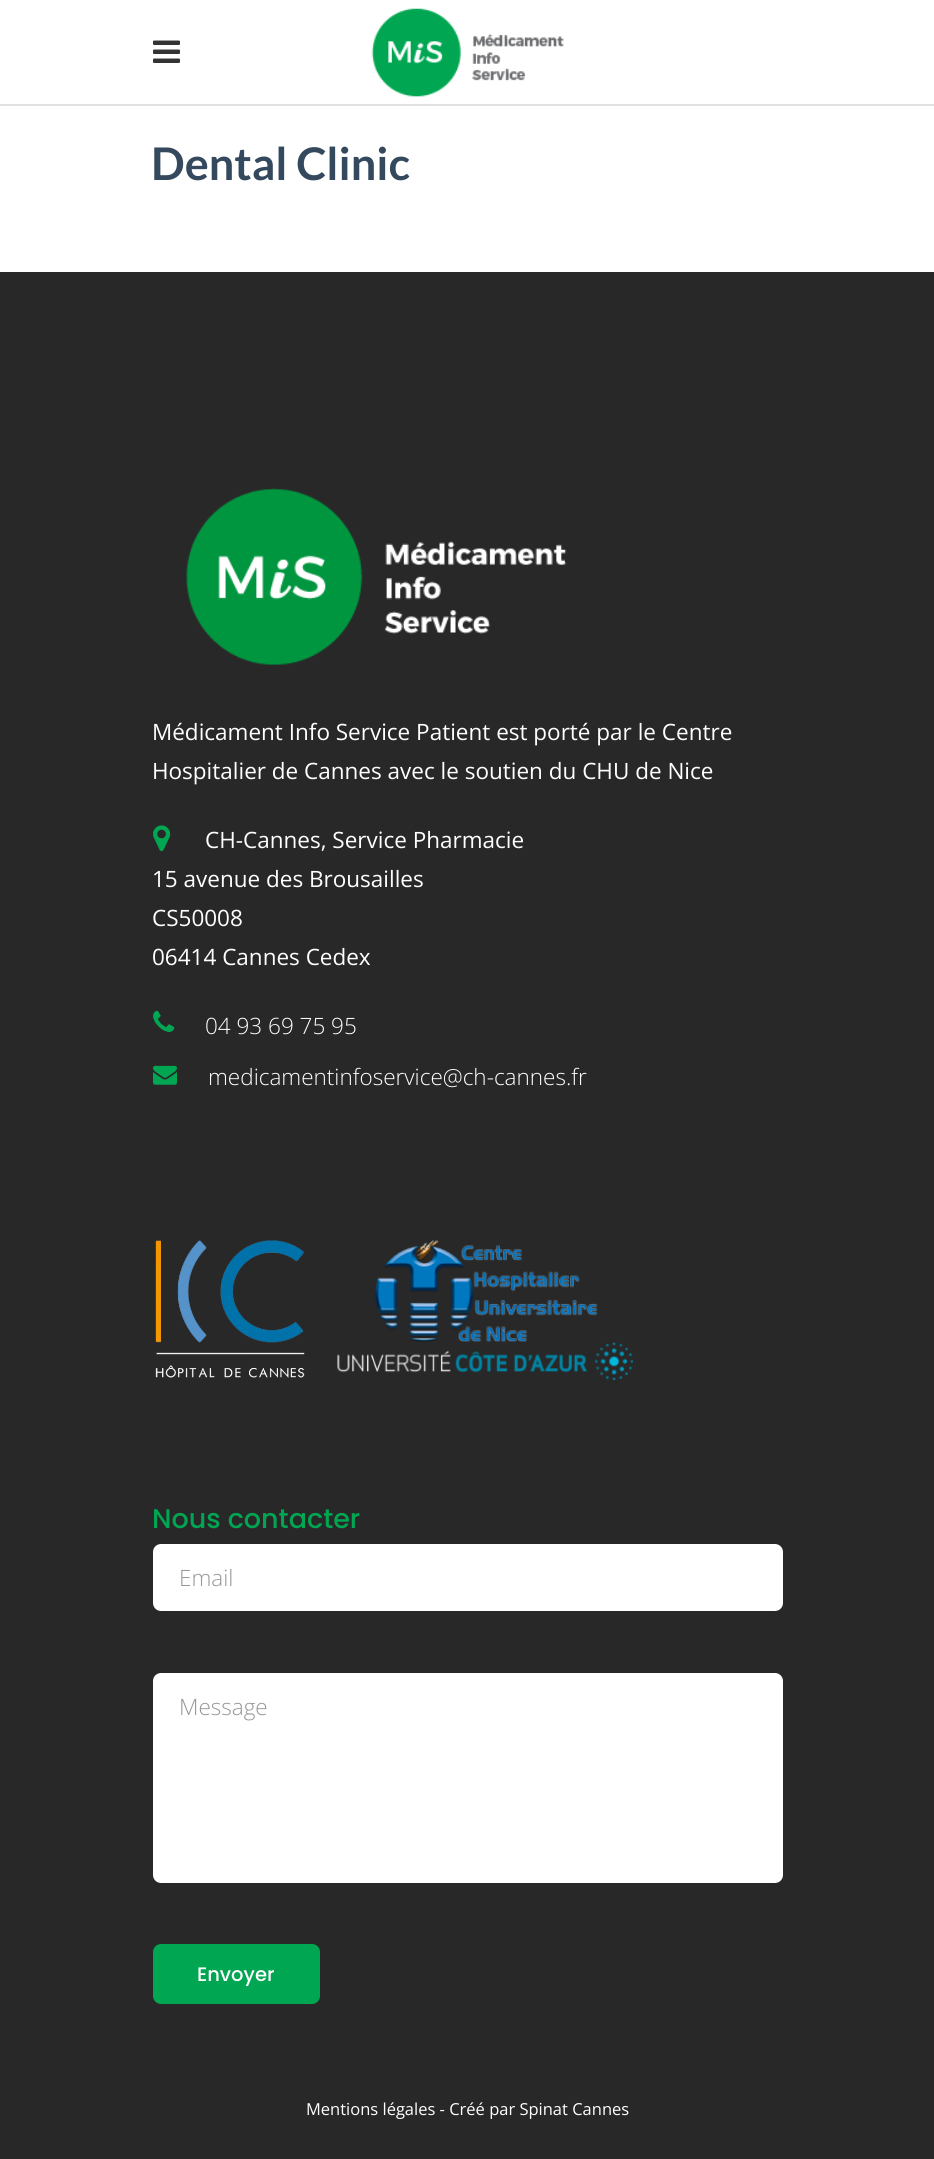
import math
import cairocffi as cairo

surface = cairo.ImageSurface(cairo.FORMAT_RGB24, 934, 2159)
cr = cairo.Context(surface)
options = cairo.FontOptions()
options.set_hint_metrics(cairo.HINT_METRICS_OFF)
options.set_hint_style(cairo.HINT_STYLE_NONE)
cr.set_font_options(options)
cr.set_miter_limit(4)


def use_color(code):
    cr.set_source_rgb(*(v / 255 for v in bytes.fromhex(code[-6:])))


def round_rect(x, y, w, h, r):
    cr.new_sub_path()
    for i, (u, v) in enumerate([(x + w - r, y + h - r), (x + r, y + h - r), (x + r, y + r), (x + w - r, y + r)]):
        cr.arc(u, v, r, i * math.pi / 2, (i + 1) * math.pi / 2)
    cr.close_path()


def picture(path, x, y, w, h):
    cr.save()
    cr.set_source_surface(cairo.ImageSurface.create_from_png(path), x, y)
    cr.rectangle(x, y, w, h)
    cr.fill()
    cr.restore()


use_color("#ffffff")
cr.paint()
use_color("#e1e1e1")
cr.rectangle(0, 104, 934, 2)
cr.fill()
picture("img1.png", 153, 40, 27, 23)
picture("img2.png", 371, 8, 193, 89)
cr.select_font_face("Lato", cairo.FONT_SLANT_NORMAL, cairo.FONT_WEIGHT_BOLD)
cr.set_font_size(45)
use_color("#34495e")
cr.move_to(151, 180)
cr.show_text("Dental Clinic")
use_color("#282828")
cr.rectangle(0, 272, 934, 1887)
cr.fill()
picture("img3.png", 186, 488, 381, 177)
cr.select_font_face("Open Sans")
cr.set_font_size(22.5)
use_color("#ffffff")
cr.move_to(152, 740)
cr.show_text("Médicament Info Service Patient est porté par le Centre")
cr.move_to(152, 779)
cr.show_text("Hospitalier de Cannes avec le soutien du CHU de Nice")
picture("img4.png", 153, 825, 18, 27)
cr.move_to(205, 848)
cr.show_text("CH-Cannes, Service Pharmacie")
cr.move_to(152, 887)
cr.show_text("15 avenue des Brousailles")
cr.move_to(152, 926)
cr.show_text("CS50008")
cr.move_to(152, 965)
cr.show_text("06414 Cannes Cedex")
picture("img5.png", 153, 1010, 22, 22)
cr.select_font_face("Open Sans Light")
cr.move_to(205, 1034)
cr.show_text("04 93 69 75 95")
picture("img6.png", 153, 1065, 24, 20)
cr.move_to(208, 1085)
cr.show_text("medicamentinfoservice@ch-cannes.fr")
picture("img7.png", 155, 1240, 150, 138)
picture("img8.png", 337, 1240, 296, 140)
cr.select_font_face("Poppins Medium")
cr.set_font_size(27)
use_color("#00a651")
cr.move_to(152, 1528)
cr.show_text("Nous contacter")
use_color("#ffffff")
round_rect(153, 1544, 630, 67, 8)
cr.fill()
cr.select_font_face("Open Sans Light")
cr.set_font_size(22.5)
use_color("#979797")
cr.move_to(179, 1586)
cr.show_text("Email")
use_color("#ffffff")
round_rect(153, 1673, 630, 210, 8)
cr.fill()
use_color("#979797")
cr.move_to(179, 1715)
cr.show_text("Message")
use_color("#00a651")
round_rect(153, 1944, 167, 60, 8)
cr.fill()
cr.select_font_face("Poppins Medium")
cr.set_font_size(19.5)
use_color("#ffffff")
cr.move_to(197, 1981)
cr.show_text("Envoyer")
cr.select_font_face("Open Sans")
cr.set_font_size(16.5)
cr.move_to(306, 2115)
cr.show_text("Mentions légales - Créé par Spinat Cannes")
surface.write_to_png("result.png")
